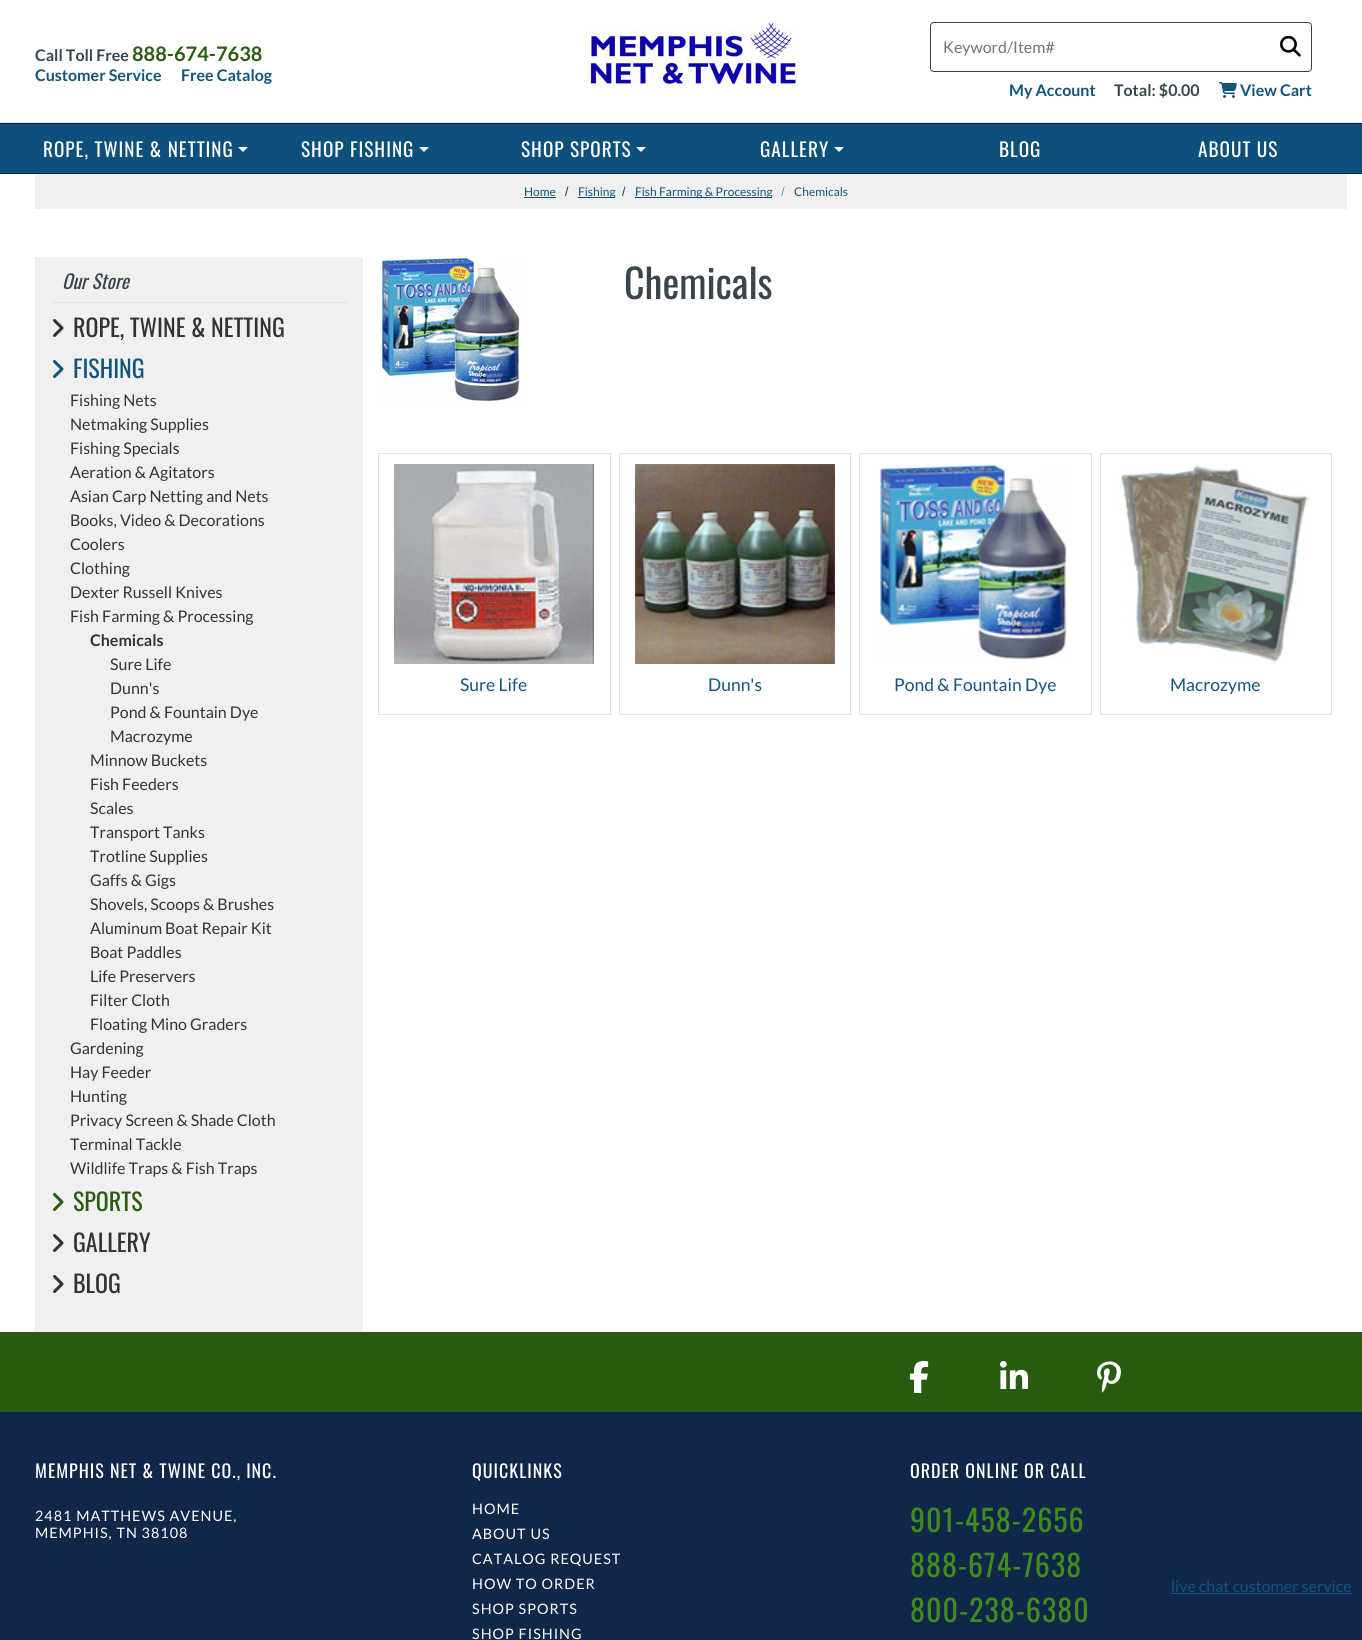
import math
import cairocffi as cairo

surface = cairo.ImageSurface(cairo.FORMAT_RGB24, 1362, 1640)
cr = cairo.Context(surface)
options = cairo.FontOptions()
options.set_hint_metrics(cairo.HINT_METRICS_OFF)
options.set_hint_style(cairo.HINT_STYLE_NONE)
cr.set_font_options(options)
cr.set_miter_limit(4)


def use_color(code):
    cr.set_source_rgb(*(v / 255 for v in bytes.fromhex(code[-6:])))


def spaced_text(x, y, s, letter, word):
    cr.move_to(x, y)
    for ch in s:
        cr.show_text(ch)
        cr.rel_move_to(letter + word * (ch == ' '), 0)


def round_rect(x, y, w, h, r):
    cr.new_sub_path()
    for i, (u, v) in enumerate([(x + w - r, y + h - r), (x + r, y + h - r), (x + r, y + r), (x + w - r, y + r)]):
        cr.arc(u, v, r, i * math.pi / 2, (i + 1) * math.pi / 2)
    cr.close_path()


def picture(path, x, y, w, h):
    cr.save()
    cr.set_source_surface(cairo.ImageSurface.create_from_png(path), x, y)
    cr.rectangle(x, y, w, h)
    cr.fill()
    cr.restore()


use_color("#ffffff")
cr.paint()
use_color("#dee2e6")
cr.rectangle(0, 122, 1362, 1)
cr.fill()
cr.select_font_face("Lato", cairo.FONT_SLANT_NORMAL, cairo.FONT_WEIGHT_BOLD)
cr.set_font_size(16)
use_color("#39464d")
cr.move_to(35, 61)
cr.show_text("Call Toll Free")
cr.set_font_size(20)
use_color("#295b10")
cr.move_to(132, 61)
cr.show_text("888-674-7638")
cr.set_font_size(16)
use_color("#11547e")
cr.move_to(35, 81)
cr.show_text("Customer Service")
cr.move_to(181, 81)
cr.show_text("Free Catalog")
picture("img1.png", 590, 22, 208, 64)
round_rect(930.5, 22.5, 381, 49, 3.5)
use_color("#39464d")
cr.set_line_width(1)
cr.stroke()
cr.select_font_face("Lato")
use_color("#6c757d")
cr.move_to(943, 53)
cr.show_text("Keyword/Item#")
picture("img2.png", 1280, 35, 21, 22)
cr.select_font_face("Lato", cairo.FONT_SLANT_NORMAL, cairo.FONT_WEIGHT_BOLD)
use_color("#11547e")
cr.move_to(1009, 96)
cr.show_text("My Account")
use_color("#39464d")
cr.move_to(1114, 96)
cr.show_text("Total: $0.00")
picture("img3.png", 1219, 82, 18, 16)
use_color("#11547e")
cr.move_to(1240, 96)
cr.show_text("View Cart")
use_color("#0e507c")
cr.rectangle(0, 124, 1362, 49)
cr.fill()
use_color("#112749")
cr.rectangle(0, 123, 1362, 1)
cr.fill()
cr.rectangle(0, 173, 1362, 1)
cr.fill()
cr.select_font_face("Oswald")
cr.set_font_size(19.25)
use_color("#ffffff")
spaced_text(43, 157, "ROPE, TWINE & NETTING", 1, 0)
cr.new_path()
cr.move_to(238, 147)
cr.line_to(248, 147)
cr.line_to(243, 152)
cr.close_path()
cr.fill()
spaced_text(301, 157, "SHOP FISHING", 1, 0)
cr.new_path()
cr.move_to(419, 147)
cr.line_to(429, 147)
cr.line_to(424, 152)
cr.close_path()
cr.fill()
spaced_text(521, 157, "SHOP SPORTS", 1, 0)
cr.new_path()
cr.move_to(636, 147)
cr.line_to(646, 147)
cr.line_to(641, 152)
cr.close_path()
cr.fill()
spaced_text(760, 157, "GALLERY", 1, 0)
cr.new_path()
cr.move_to(834, 147)
cr.line_to(844, 147)
cr.line_to(839, 152)
cr.close_path()
cr.fill()
spaced_text(999, 157, "BLOG", 1, 0)
spaced_text(1198, 157, "ABOUT US", 1, 0)
use_color("#f0f0f0")
cr.rectangle(35, 174, 1312, 35)
cr.fill()
cr.select_font_face("Lato")
cr.set_font_size(12)
use_color("#11547e")
cr.move_to(524, 196)
cr.show_text("Home")
use_color("#0e507c")
cr.rectangle(524, 197, 32, 1)
cr.fill()
cr.rectangle(578, 197, 37, 1)
cr.fill()
use_color("#11547e")
cr.move_to(578, 196)
cr.show_text("Fishing")
use_color("#0e507c")
cr.new_path()
cr.move_to(567.5, 186.5)
cr.line_to(568.5, 186.5)
cr.line_to(566, 196)
cr.line_to(565, 195.5)
cr.close_path()
cr.move_to(624.5, 186.5)
cr.line_to(625.5, 186.5)
cr.line_to(623, 196)
cr.line_to(622, 195.5)
cr.close_path()
cr.fill()
cr.rectangle(635, 197, 137, 1)
cr.fill()
use_color("#11547e")
cr.move_to(635, 196)
cr.show_text("Fish Farming & Processing")
use_color("#0e507c")
cr.new_path()
cr.move_to(784, 186.5)
cr.line_to(784.5, 186.5)
cr.line_to(782, 196)
cr.line_to(781.5, 195.5)
cr.close_path()
cr.fill()
use_color("#11547e")
cr.move_to(794, 196)
cr.show_text("Chemicals")
use_color("#f0f0f0")
cr.rectangle(35, 257, 328, 1075)
cr.fill()
use_color("#dee2e6")
cr.rectangle(52, 302, 296, 1)
cr.fill()
cr.select_font_face("Oswald", cairo.FONT_SLANT_ITALIC)
cr.set_font_size(19.25)
use_color("#39464d")
cr.move_to(62, 289)
cr.show_text("Our Store")
picture("img4.png", 53, 319, 11, 18)
cr.select_font_face("Oswald")
cr.set_font_size(24)
use_color("#333333")
cr.move_to(73, 337)
cr.show_text("ROPE, TWINE & NETTING")
picture("img5.png", 53, 360, 11, 18)
use_color("#11547e")
cr.move_to(73, 378)
cr.show_text("FISHING")
cr.select_font_face("Lato")
cr.set_font_size(16)
use_color("#333333")
cr.move_to(70, 406)
cr.show_text("Fishing Nets")
cr.move_to(70, 430)
cr.show_text("Netmaking Supplies")
cr.move_to(70, 454)
cr.show_text("Fishing Specials")
cr.move_to(70, 478)
cr.show_text("Aeration & Agitators")
cr.move_to(70, 502)
cr.show_text("Asian Carp Netting and Nets")
cr.move_to(70, 526)
cr.show_text("Books, Video & Decorations")
cr.move_to(70, 550)
cr.show_text("Coolers")
cr.move_to(70, 574)
cr.show_text("Clothing")
cr.move_to(70, 598)
cr.show_text("Dexter Russell Knives")
cr.move_to(70, 622)
cr.show_text("Fish Farming & Processing")
cr.select_font_face("Lato", cairo.FONT_SLANT_NORMAL, cairo.FONT_WEIGHT_BOLD)
cr.move_to(90, 646)
cr.show_text("Chemicals")
cr.select_font_face("Lato")
cr.move_to(110, 670)
cr.show_text("Sure Life")
cr.move_to(110, 694)
cr.show_text("Dunn's")
cr.move_to(110, 718)
cr.show_text("Pond & Fountain Dye")
cr.move_to(110, 742)
cr.show_text("Macrozyme")
cr.move_to(90, 766)
cr.show_text("Minnow Buckets")
cr.move_to(90, 790)
cr.show_text("Fish Feeders")
cr.move_to(90, 814)
cr.show_text("Scales")
cr.move_to(90, 838)
cr.show_text("Transport Tanks")
cr.move_to(90, 862)
cr.show_text("Trotline Supplies")
cr.move_to(90, 886)
cr.show_text("Gaffs & Gigs")
cr.move_to(90, 910)
cr.show_text("Shovels, Scoops & Brushes")
cr.move_to(90, 934)
cr.show_text("Aluminum Boat Repair Kit")
cr.move_to(90, 958)
cr.show_text("Boat Paddles")
cr.move_to(90, 982)
cr.show_text("Life Preservers")
cr.move_to(90, 1006)
cr.show_text("Filter Cloth")
cr.move_to(90, 1030)
cr.show_text("Floating Mino Graders")
cr.move_to(70, 1054)
cr.show_text("Gardening")
cr.move_to(70, 1078)
cr.show_text("Hay Feeder")
cr.move_to(70, 1102)
cr.show_text("Hunting")
cr.move_to(70, 1126)
cr.show_text("Privacy Screen & Shade Cloth")
cr.move_to(70, 1150)
cr.show_text("Terminal Tackle")
cr.move_to(70, 1174)
cr.show_text("Wildlife Traps & Fish Traps")
picture("img6.png", 53, 1193, 11, 18)
cr.select_font_face("Oswald")
cr.set_font_size(24)
use_color("#295b10")
cr.move_to(73, 1211)
cr.show_text("SPORTS")
picture("img4.png", 53, 1234, 11, 18)
use_color("#333333")
cr.move_to(73, 1252)
cr.show_text("GALLERY")
picture("img4.png", 53, 1275, 11, 18)
cr.move_to(73, 1293)
cr.show_text("BLOG")
picture("img7.png", 379, 257, 142, 145)
cr.set_font_size(40)
use_color("#39464d")
cr.move_to(624, 299)
cr.show_text("Chemicals")
cr.rectangle(378.5, 453.5, 232, 261)
use_color("#e1e1e1")
cr.stroke()
picture("img8.png", 394, 464, 200, 200)
cr.select_font_face("Lato")
cr.set_font_size(17.5)
use_color("#11547e")
cr.move_to(460, 691)
cr.show_text("Sure Life")
cr.rectangle(619.5, 453.5, 231, 261)
use_color("#e1e1e1")
cr.stroke()
picture("img9.png", 635, 464, 200, 200)
use_color("#11547e")
cr.move_to(708, 691)
cr.show_text("Dunn's")
cr.rectangle(859.5, 453.5, 232, 261)
use_color("#e1e1e1")
cr.stroke()
picture("img10.png", 879, 464, 189, 196)
use_color("#11547e")
cr.move_to(894, 691)
cr.show_text("Pond & Fountain Dye")
cr.rectangle(1100.5, 453.5, 231, 261)
use_color("#e1e1e1")
cr.stroke()
picture("img11.png", 1119, 464, 191, 199)
use_color("#11547e")
cr.move_to(1170, 691)
cr.show_text("Macrozyme")
use_color("#295b10")
cr.rectangle(0, 1332, 1362, 80)
cr.fill()
picture("img12.png", 909, 1361, 20, 32)
picture("img13.png", 1000, 1361, 28, 28)
picture("img14.png", 1097, 1361, 24, 32)
use_color("#112749")
cr.rectangle(0, 1412, 1362, 228)
cr.fill()
cr.select_font_face("Oswald")
cr.set_font_size(18)
use_color("#ffffff")
spaced_text(35, 1478, "MEMPHIS NET & TWINE CO., INC.", 1, 0)
cr.select_font_face("Lato")
cr.set_font_size(14.4)
spaced_text(35, 1521, "2481 MATTHEWS AVENUE,", 1, 0)
spaced_text(35, 1538, "MEMPHIS, TN 38108", 1, 0)
cr.select_font_face("Oswald")
cr.set_font_size(18)
spaced_text(472, 1478, "QUICKLINKS", 1, 0)
cr.select_font_face("Lato")
cr.set_font_size(14.4)
spaced_text(472, 1514, "HOME", 1, 0)
spaced_text(472, 1539, "ABOUT US", 1, 0)
spaced_text(472, 1564, "CATALOG REQUEST", 1, 0)
spaced_text(472, 1589, "HOW TO ORDER", 1, 0)
spaced_text(472, 1614, "SHOP SPORTS", 1, 0)
spaced_text(472, 1639, "SHOP FISHING", 1, 0)
cr.select_font_face("Oswald")
cr.set_font_size(18)
spaced_text(910, 1478, "ORDER ONLINE OR CALL", 1, 0)
cr.set_font_size(30)
use_color("#408c1b")
spaced_text(910, 1532, "901-458-2656", 1, 0)
spaced_text(910, 1577, "888-674-7638", 1, 0)
spaced_text(910, 1622, "800-238-6380", 1, 0)
cr.select_font_face("Lato")
cr.set_font_size(16)
use_color("#11547e")
cr.move_to(1171, 1592)
cr.show_text("live chat customer service")
cr.rectangle(1171, 1593, 181, 1)
cr.fill()
surface.write_to_png("result.png")
